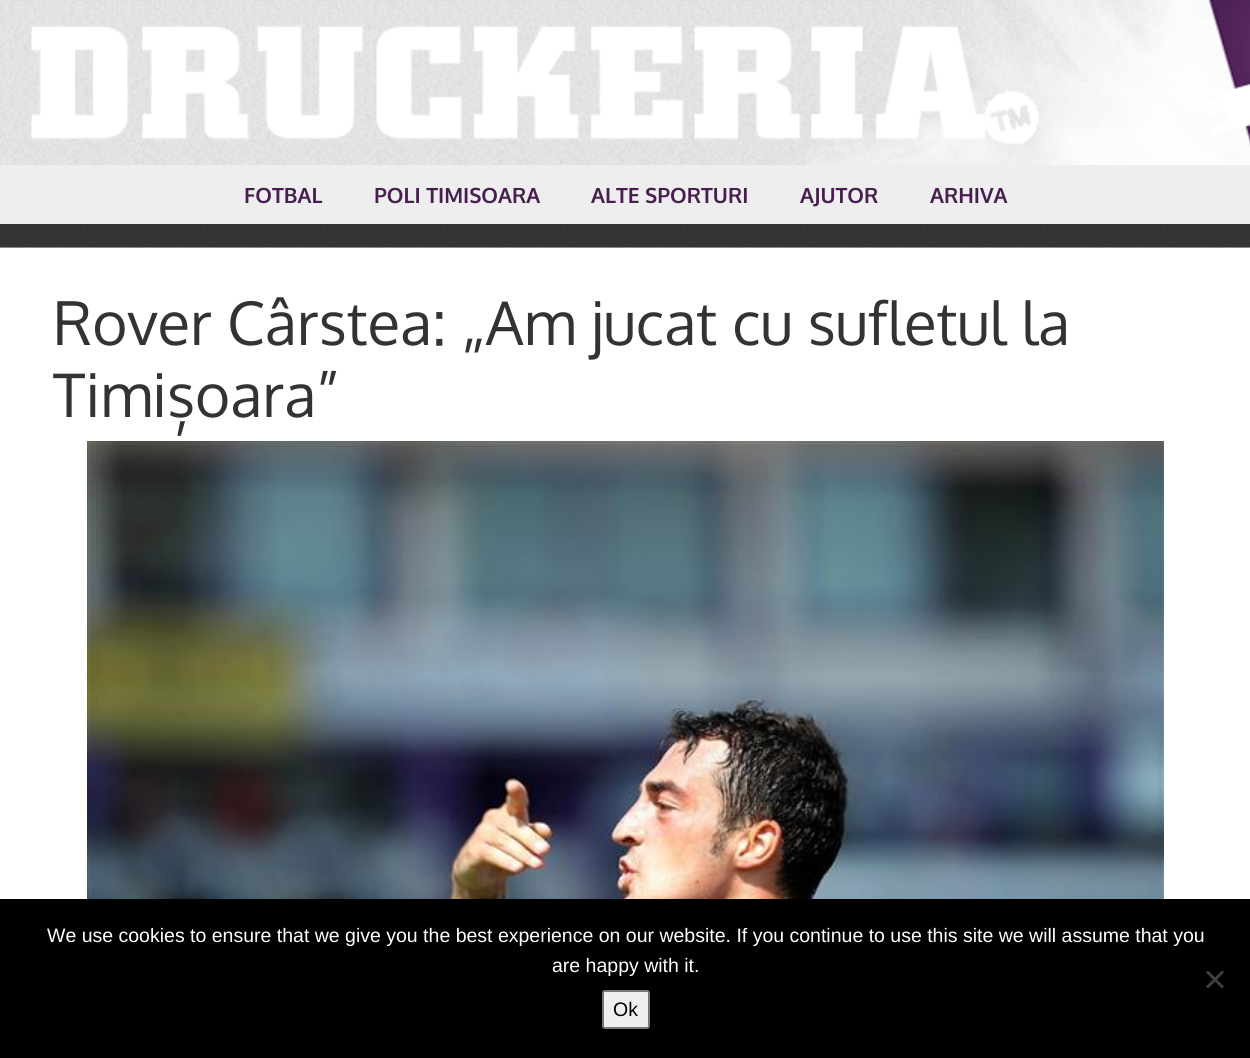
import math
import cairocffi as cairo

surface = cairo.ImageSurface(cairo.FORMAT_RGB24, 1250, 1058)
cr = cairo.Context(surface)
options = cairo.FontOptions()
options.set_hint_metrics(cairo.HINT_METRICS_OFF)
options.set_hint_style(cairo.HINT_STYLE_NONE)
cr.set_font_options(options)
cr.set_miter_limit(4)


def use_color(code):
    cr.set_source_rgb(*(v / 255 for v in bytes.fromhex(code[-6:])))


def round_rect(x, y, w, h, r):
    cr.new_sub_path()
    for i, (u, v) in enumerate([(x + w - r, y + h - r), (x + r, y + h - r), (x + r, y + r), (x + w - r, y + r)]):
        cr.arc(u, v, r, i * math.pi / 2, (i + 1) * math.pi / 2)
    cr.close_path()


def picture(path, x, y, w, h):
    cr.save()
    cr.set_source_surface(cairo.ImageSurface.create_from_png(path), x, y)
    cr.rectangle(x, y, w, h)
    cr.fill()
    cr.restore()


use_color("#ffffff")
cr.paint()
picture("img1.png", 0, 247, 1250, 1)
picture("img2.png", 0, 0, 1250, 165)
picture("img3.png", 0, 224, 1250, 24)
use_color("#eeeeee")
cr.rectangle(0, 165, 1250, 59)
cr.fill()
cr.select_font_face("Oxygen", cairo.FONT_SLANT_NORMAL, cairo.FONT_WEIGHT_BOLD)
cr.set_font_size(21)
use_color("#481d4f")
cr.move_to(244, 203)
cr.show_text("FOTBAL")
cr.move_to(374, 203)
cr.show_text("POLI TIMISOARA")
cr.move_to(591, 203)
cr.show_text("ALTE SPORTURI")
cr.move_to(800, 203)
cr.show_text("AJUTOR")
cr.move_to(930, 203)
cr.show_text("ARHIVA")
cr.select_font_face("Oxygen")
cr.set_font_size(60)
use_color("#333333")
cr.move_to(53, 345)
cr.show_text("Rover Cârstea: „Am jucat cu sufletul la")
cr.move_to(53, 417)
cr.show_text("Timișoara”")
picture("img4.png", 87, 441, 1077, 458)
use_color("#000000")
cr.rectangle(0, 899, 1250, 159)
cr.fill()
cr.select_font_face("Liberation Sans")
cr.set_font_size(19.5)
use_color("#ffffff")
cr.move_to(47, 942)
cr.show_text("We use cookies to ensure that we give you the best experience on our website. If you continue to use this site we will assume that you")
cr.move_to(552, 972)
cr.show_text("are happy with it.")
use_color("#404040")
cr.new_path()
cr.move_to(1222, 970.5)
cr.line_to(1224, 972.5)
cr.line_to(1208, 988.5)
cr.line_to(1206, 986.5)
cr.close_path()
cr.fill()
cr.new_path()
cr.move_to(1206, 972.5)
cr.line_to(1208, 970.5)
cr.line_to(1224, 986.5)
cr.line_to(1222, 988.5)
cr.close_path()
cr.fill()
use_color("#efefef")
round_rect(603, 991, 46, 37, 2)
cr.fill_preserve()
use_color("#767676")
cr.stroke()
use_color("#000000")
cr.move_to(613, 1016)
cr.show_text("Ok")
surface.write_to_png("result.png")
